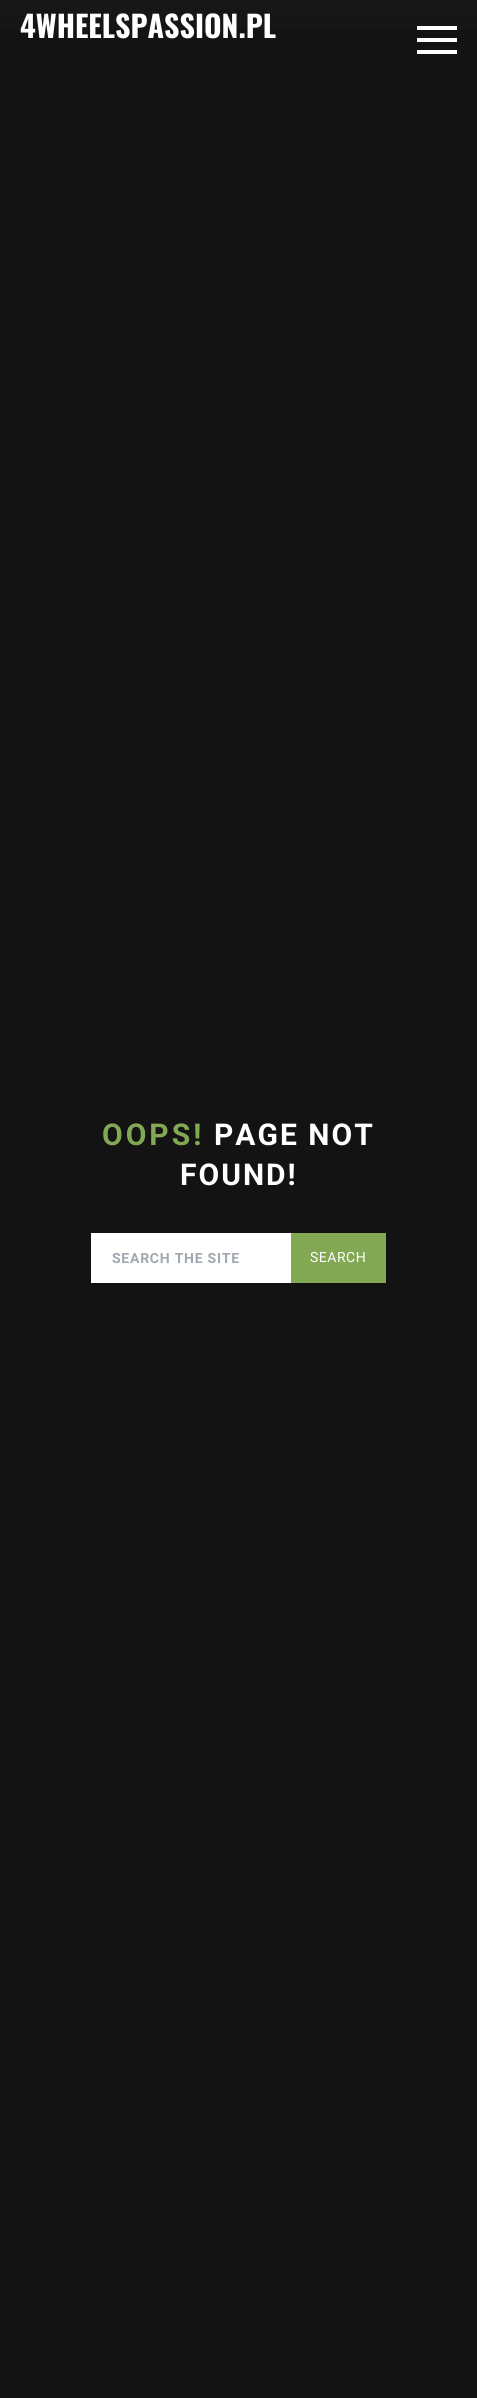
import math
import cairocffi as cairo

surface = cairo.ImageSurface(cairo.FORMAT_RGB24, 477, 2398)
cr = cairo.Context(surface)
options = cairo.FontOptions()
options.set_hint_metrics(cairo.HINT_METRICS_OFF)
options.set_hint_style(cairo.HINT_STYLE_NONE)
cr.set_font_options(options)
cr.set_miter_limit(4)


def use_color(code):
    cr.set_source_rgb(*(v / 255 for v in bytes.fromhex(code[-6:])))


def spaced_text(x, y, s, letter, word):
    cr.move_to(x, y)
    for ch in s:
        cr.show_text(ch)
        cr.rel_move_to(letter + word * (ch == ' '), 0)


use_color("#131313")
cr.paint()
gradient = cairo.LinearGradient(239, 0, 239, 80)
gradient.add_color_stop_rgba(0, 0.09, 0.09, 0.09, 1)
gradient.add_color_stop_rgba(1, 0.075, 0.075, 0.075, 1)
cr.set_source(gradient)
cr.rectangle(0, 0, 477, 30)
cr.fill()
cr.select_font_face("Oswald", cairo.FONT_SLANT_NORMAL, cairo.FONT_WEIGHT_BOLD)
cr.set_font_size(30)
use_color("#ffffff")
cr.move_to(20, 38)
cr.show_text("4WHEELSPASSION.PL")
cr.rectangle(417, 26, 40, 4)
cr.fill()
cr.rectangle(417, 38, 40, 4)
cr.fill()
cr.rectangle(417, 50, 40, 4)
cr.fill()
cr.select_font_face("Roboto", cairo.FONT_SLANT_NORMAL, cairo.FONT_WEIGHT_BOLD)
use_color("#82a853")
spaced_text(102, 1145, "OOPS!", 3, 0)
use_color("#ffffff")
spaced_text(214, 1145, "PAGE NOT", 2, 0)
spaced_text(180, 1185, "FOUND!", 2, 0)
cr.rectangle(91, 1233, 200, 50)
cr.fill()
cr.set_font_size(14)
use_color("#a0a7ae")
spaced_text(112, 1263, "SEARCH THE SITE", 0.75, 0)
use_color("#82a853")
cr.rectangle(291, 1233, 95, 50)
cr.fill()
cr.select_font_face("Roboto")
use_color("#ffffff")
spaced_text(310, 1262, "SEARCH", 0.5, 0)
surface.write_to_png("result.png")
